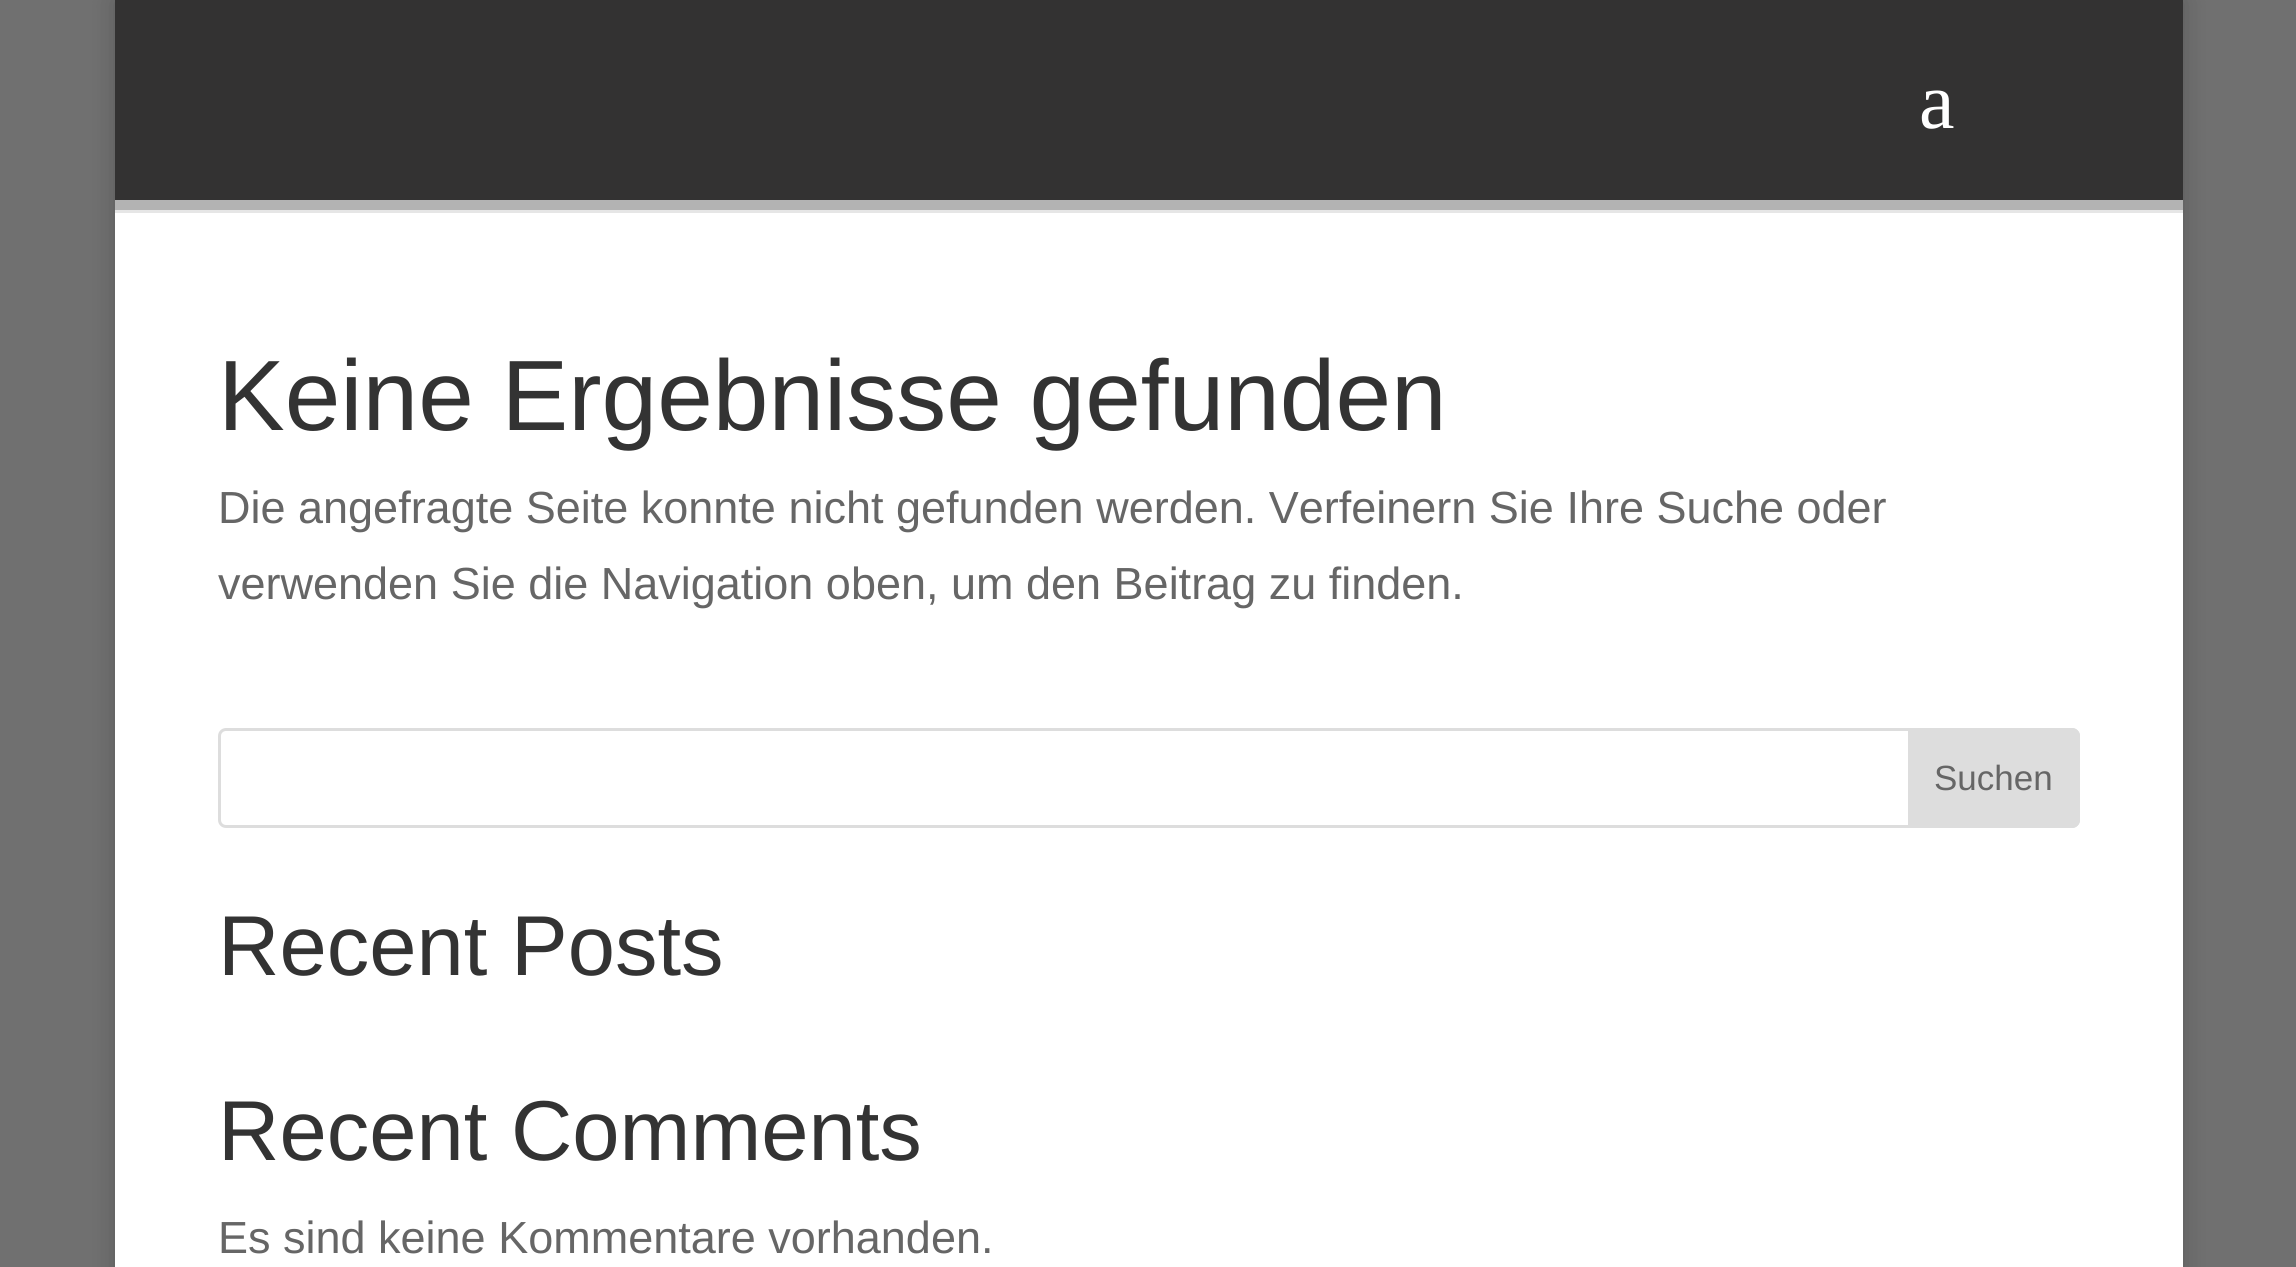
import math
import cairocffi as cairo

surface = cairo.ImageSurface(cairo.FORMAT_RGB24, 2296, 1267)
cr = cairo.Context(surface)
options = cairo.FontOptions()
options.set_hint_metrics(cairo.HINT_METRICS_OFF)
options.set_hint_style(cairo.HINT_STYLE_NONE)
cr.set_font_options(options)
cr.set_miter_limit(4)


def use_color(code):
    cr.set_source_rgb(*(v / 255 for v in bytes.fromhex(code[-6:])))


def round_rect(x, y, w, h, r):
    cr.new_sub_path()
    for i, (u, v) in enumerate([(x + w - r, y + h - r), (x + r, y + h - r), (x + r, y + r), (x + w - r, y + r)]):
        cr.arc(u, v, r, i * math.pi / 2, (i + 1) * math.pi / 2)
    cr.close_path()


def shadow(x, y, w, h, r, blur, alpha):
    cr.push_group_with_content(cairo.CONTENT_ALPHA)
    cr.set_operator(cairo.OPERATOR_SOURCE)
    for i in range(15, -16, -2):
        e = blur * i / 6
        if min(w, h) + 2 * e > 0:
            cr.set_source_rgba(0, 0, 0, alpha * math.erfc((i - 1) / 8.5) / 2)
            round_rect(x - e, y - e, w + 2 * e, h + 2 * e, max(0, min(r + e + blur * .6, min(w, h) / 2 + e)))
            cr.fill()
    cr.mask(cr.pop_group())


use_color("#707070")
cr.paint()
use_color("#000000")
shadow(115, 0, 2068, 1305, 0, 12.5, 0.2)
use_color("#ffffff")
cr.rectangle(115, 210, 2068, 1057)
cr.fill()
cr.set_source_rgba(0, 0, 0, 0.1)
cr.new_path()
cr.move_to(115, 210)
cr.line_to(115, 213)
cr.line_to(2183, 213)
cr.line_to(2183, 3)
cr.line_to(2182, 3)
cr.line_to(2182, 210)
cr.close_path()
cr.fill()
use_color("#333232")
cr.rectangle(115, 0, 2068, 200)
cr.fill()
use_color("#b3b3b3")
cr.rectangle(115, 200, 2068, 10)
cr.fill()
cr.select_font_face("Liberation Serif")
cr.set_font_size(80)
use_color("#ffffff")
cr.move_to(1919, 128)
cr.show_text("a")
cr.select_font_face("Liberation Sans")
cr.set_font_size(100)
use_color("#333333")
cr.move_to(218, 430)
cr.show_text("Keine Ergebnisse gefunden")
cr.set_font_size(45)
use_color("#666666")
cr.move_to(218, 523)
cr.show_text("Die angefragte Seite konnte nicht gefunden werden. Verfeinern Sie Ihre Suche oder")
cr.move_to(218, 599)
cr.show_text("verwenden Sie die Navigation oben, um den Beitrag zu finden.")
round_rect(219.5, 729.5, 1859, 97, 6.5)
use_color("#dddddd")
cr.set_line_width(3)
cr.stroke()
cr.new_path()
cr.move_to(1909.5, 729.5)
cr.line_to(2072, 729.5)
cr.curve_to(2075.5, 729.5, 2078.5, 732.5, 2078.5, 736)
cr.line_to(2078.5, 820)
cr.curve_to(2078.5, 823.5, 2075.5, 826.5, 2072, 826.5)
cr.line_to(1909.5, 826.5)
cr.close_path()
cr.fill_preserve()
cr.stroke()
cr.set_font_size(35)
use_color("#666666")
cr.move_to(1934, 790)
cr.show_text("Suchen")
cr.set_font_size(85)
use_color("#333333")
cr.move_to(218, 975)
cr.show_text("Recent Posts")
cr.move_to(218, 1160)
cr.show_text("Recent Comments")
cr.set_font_size(45)
use_color("#666666")
cr.move_to(218, 1253)
cr.show_text("Es sind keine Kommentare vorhanden.")
surface.write_to_png("result.png")
